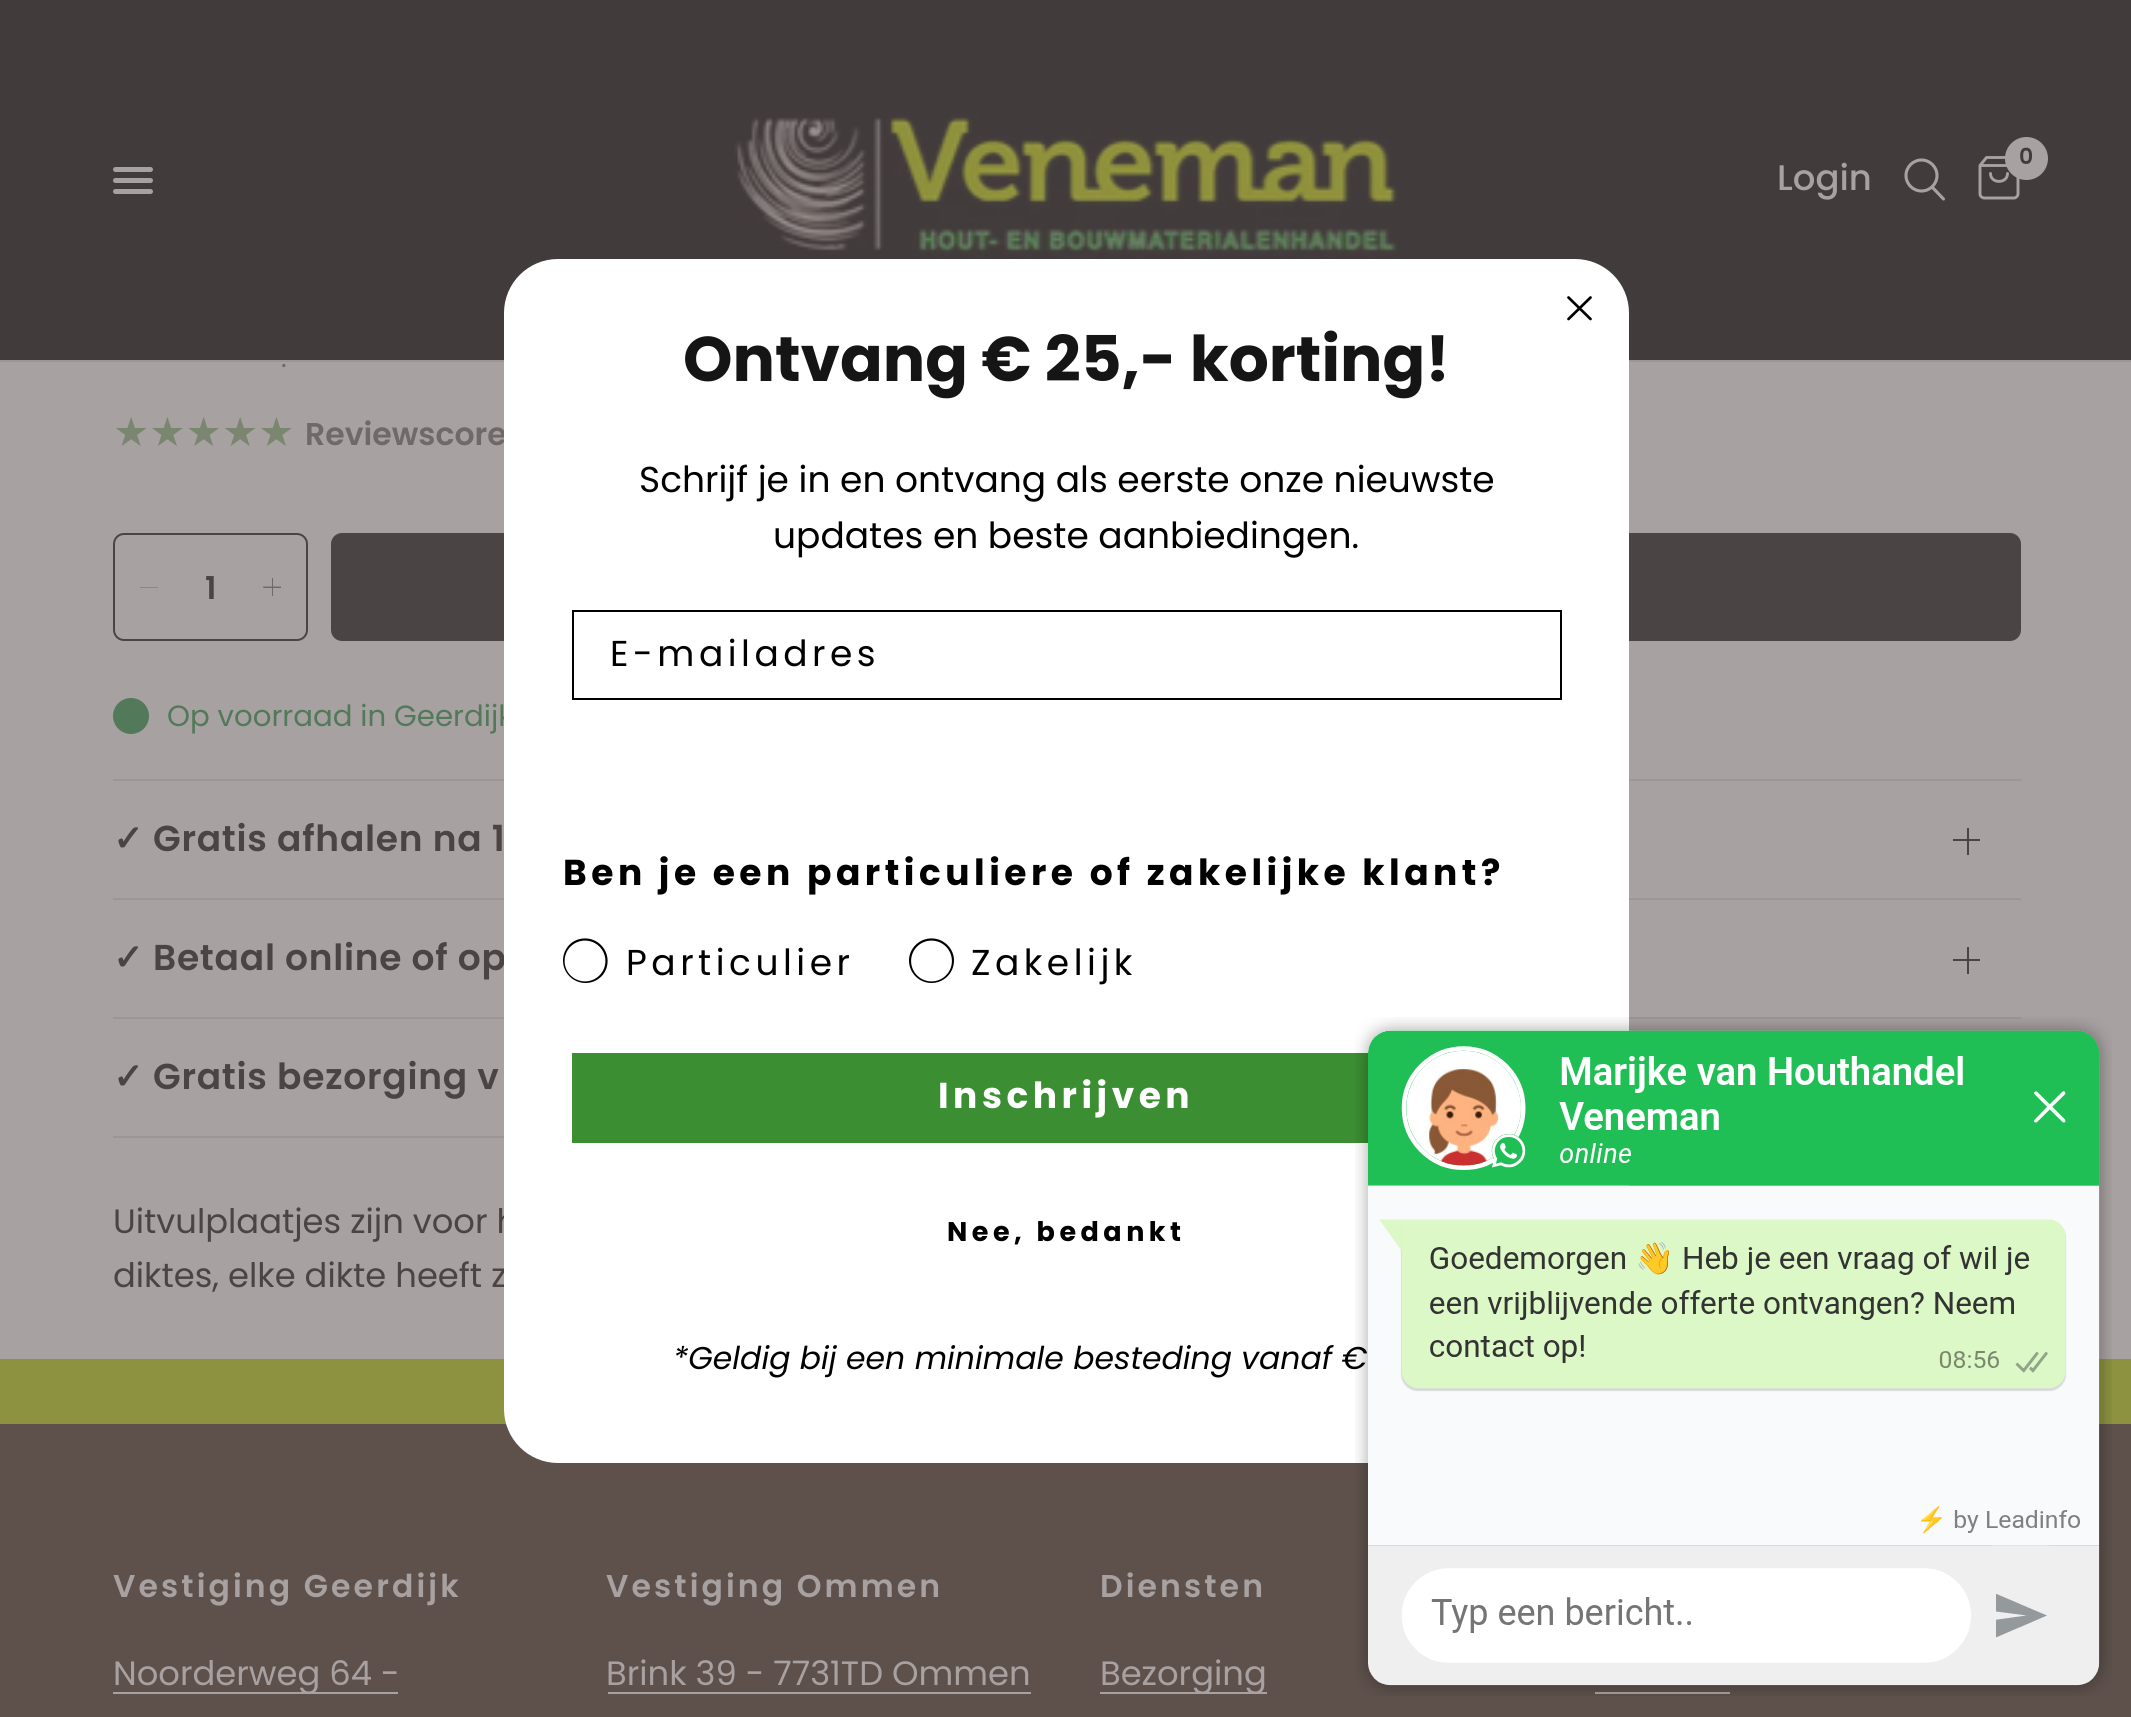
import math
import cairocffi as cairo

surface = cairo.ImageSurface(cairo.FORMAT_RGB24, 2131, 1717)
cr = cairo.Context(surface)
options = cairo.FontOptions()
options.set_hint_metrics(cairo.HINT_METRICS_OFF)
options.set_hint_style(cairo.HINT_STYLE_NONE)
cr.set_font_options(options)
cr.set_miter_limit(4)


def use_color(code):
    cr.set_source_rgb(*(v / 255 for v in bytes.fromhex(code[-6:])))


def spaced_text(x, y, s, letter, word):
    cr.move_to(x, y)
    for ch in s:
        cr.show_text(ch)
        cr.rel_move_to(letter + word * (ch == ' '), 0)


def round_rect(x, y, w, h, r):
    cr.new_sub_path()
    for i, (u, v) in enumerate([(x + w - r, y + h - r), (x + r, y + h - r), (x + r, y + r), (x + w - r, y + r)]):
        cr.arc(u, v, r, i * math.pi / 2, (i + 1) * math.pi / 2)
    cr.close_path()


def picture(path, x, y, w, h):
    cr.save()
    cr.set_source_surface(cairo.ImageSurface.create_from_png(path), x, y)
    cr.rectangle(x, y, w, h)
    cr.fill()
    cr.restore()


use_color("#a8a1a1")
cr.paint()
use_color("#423b3b")
cr.rectangle(0, 0, 2131, 360)
cr.fill()
use_color("#9c9696")
cr.rectangle(0, 360, 2131, 2)
cr.fill()
use_color("#a8a1a1")
round_rect(113, 167, 40, 5, 2.5)
cr.fill()
round_rect(113, 178, 40, 5, 2.5)
cr.fill()
round_rect(113, 189, 40, 5, 2.5)
cr.fill()
picture("img1.png", 734, 113, 664, 146)
cr.new_path()
cr.move_to(1980, 165.5)
cr.line_to(1986.5, 157.5)
cr.line_to(2012, 157.5)
cr.line_to(2018, 165.5)
cr.move_to(1980, 165.5)
cr.line_to(1980, 194)
cr.curve_to(1980, 196, 1982, 198, 1984.5, 198)
cr.line_to(2014, 198)
cr.curve_to(2016, 198, 2018, 196, 2018, 194)
cr.line_to(2018, 165.5)
cr.move_to(1980, 165.5)
cr.line_to(2018, 165.5)
cr.move_to(2007.5, 173.5)
cr.curve_to(2007.5, 184, 1990.5, 184, 1990.5, 173.5)
cr.set_line_width(2.9)
cr.set_line_cap(cairo.LINE_CAP_ROUND)
cr.set_line_join(cairo.LINE_JOIN_ROUND)
cr.stroke()
cr.arc(2026.5, 158.5, 21.5, 0, 2 * math.pi)
cr.fill()
cr.select_font_face("Poppins SemiBold")
cr.set_font_size(22)
use_color("#423b3b")
cr.move_to(2019, 164)
cr.show_text("0")
cr.select_font_face("Poppins Medium")
cr.set_font_size(35.5)
use_color("#a8a1a1")
cr.move_to(1777, 190)
cr.show_text("Login")
cr.new_path()
cr.move_to(1933, 188)
cr.line_to(1943.5, 199)
cr.move_to(1937, 175.5)
cr.curve_to(1937, 184, 1930, 191, 1921.5, 191)
cr.curve_to(1913, 191, 1906, 184, 1906, 175.5)
cr.curve_to(1906, 167, 1913, 160, 1921.5, 160)
cr.curve_to(1930, 160, 1937, 167, 1937, 175.5)
cr.close_path()
cr.set_line_width(3.1)
cr.stroke()
cr.select_font_face("Poppins")
cr.set_font_size(27)
use_color("#706969")
cr.move_to(281, 367)
cr.show_text(".")
cr.select_font_face("DejaVu Sans")
cr.set_font_size(40.5)
use_color("#7a8670")
cr.move_to(113, 446)
cr.show_text("★★★★★")
cr.select_font_face("Poppins SemiBold")
cr.set_font_size(31.5)
use_color("#706969")
cr.move_to(305, 445)
cr.show_text("Reviewscore")
round_rect(114, 534, 193, 106, 10)
use_color("#4a4444")
cr.set_line_width(2)
cr.set_line_cap(cairo.LINE_CAP_BUTT)
cr.set_line_join(cairo.LINE_JOIN_MITER)
cr.stroke()
use_color("#8c8585")
cr.rectangle(140, 587, 18, 1)
cr.fill()
use_color("#4a4444")
cr.move_to(205, 599)
cr.show_text("1")
use_color("#706969")
cr.rectangle(272, 578, 1, 18)
cr.fill()
cr.new_path()
cr.move_to(263.5, 588)
cr.line_to(263, 586.5)
cr.line_to(281, 586.5)
cr.line_to(281, 588)
cr.close_path()
cr.fill()
use_color("#4a4444")
round_rect(332, 534, 1688, 106, 10)
cr.fill_preserve()
cr.stroke()
use_color("#527959")
cr.arc(131, 716, 18, 0, 2 * math.pi)
cr.fill()
cr.select_font_face("Poppins")
cr.set_font_size(29.25)
cr.move_to(167, 726)
cr.show_text("Op voorraad in Geerdijk")
use_color("#9c9696")
cr.rectangle(113, 779, 1908, 2)
cr.fill()
cr.rectangle(113, 898, 1908, 2)
cr.fill()
cr.select_font_face("DejaVu Sans", cairo.FONT_SLANT_NORMAL, cairo.FONT_WEIGHT_BOLD)
cr.set_font_size(36)
use_color("#4a4444")
spaced_text(113, 851, "✓", 0.75, 0)
cr.select_font_face("Poppins SemiBold")
spaced_text(153, 851, "Gratis afhalen na 1", 0.75, 0)
cr.rectangle(1967, 828, 2, 27)
cr.fill()
cr.rectangle(1953, 839, 27, 2)
cr.fill()
use_color("#9c9696")
cr.rectangle(113, 1017, 1908, 2)
cr.fill()
cr.select_font_face("DejaVu Sans", cairo.FONT_SLANT_NORMAL, cairo.FONT_WEIGHT_BOLD)
use_color("#4a4444")
spaced_text(113, 970, "✓", 0.75, 0)
cr.select_font_face("Poppins SemiBold")
spaced_text(153, 970, "Betaal online of op", 0.75, 0)
cr.rectangle(1967, 947, 2, 27)
cr.fill()
cr.rectangle(1953, 959, 27, 2)
cr.fill()
use_color("#9c9696")
cr.rectangle(113, 1136, 391, 2)
cr.fill()
cr.select_font_face("DejaVu Sans", cairo.FONT_SLANT_NORMAL, cairo.FONT_WEIGHT_BOLD)
use_color("#4a4444")
spaced_text(113, 1089, "✓", 0.75, 0)
cr.select_font_face("Poppins SemiBold")
spaced_text(153, 1089, "Gratis bezorging v", 0.75, 0)
cr.select_font_face("Poppins")
cr.set_font_size(33.75)
cr.move_to(113, 1233)
cr.show_text("Uitvulplaatjes zijn voor h")
cr.move_to(113, 1287)
cr.show_text("diktes, elke dikte heeft z")
use_color("#8c9240")
cr.rectangle(0, 1359, 2131, 65)
cr.fill()
use_color("#5e514c")
cr.rectangle(0, 1424, 2131, 293)
cr.fill()
cr.select_font_face("Poppins SemiBold")
cr.set_font_size(31.5)
use_color("#a8a1a1")
spaced_text(113, 1597, "Vestiging Geerdijk", 3.1, 0)
cr.rectangle(113, 1692, 285, 2)
cr.fill()
cr.select_font_face("Poppins")
cr.set_font_size(33.75)
cr.move_to(113, 1685)
cr.show_text("Noorderweg 64 -")
cr.select_font_face("Poppins SemiBold")
cr.set_font_size(31.5)
spaced_text(606, 1597, "Vestiging Ommen", 3.1, 0)
cr.select_font_face("Poppins")
cr.set_font_size(33.75)
cr.move_to(606, 1685)
cr.show_text("Brink 39 - 7731TD Ommen")
cr.rectangle(608, 1692, 423, 2)
cr.fill()
cr.select_font_face("Poppins SemiBold")
cr.set_font_size(31.5)
spaced_text(1100, 1597, "Diensten", 3.1, 0)
cr.rectangle(1100, 1692, 167, 2)
cr.fill()
cr.select_font_face("Poppins")
cr.set_font_size(33.75)
cr.move_to(1100, 1685)
cr.show_text("Bezorging")
cr.rectangle(1595, 1692, 135, 2)
cr.fill()
use_color("#ffffff")
round_rect(504, 259, 1125, 1204, 54)
cr.fill()
cr.new_path()
cr.move_to(1568.5, 297.5)
cr.line_to(1590.5, 319)
cr.move_to(1568.5, 319)
cr.line_to(1590.5, 297.5)
cr.close_path()
use_color("#000000")
cr.set_line_width(2.7)
cr.set_line_cap(cairo.LINE_CAP_ROUND)
cr.set_line_join(cairo.LINE_JOIN_ROUND)
cr.stroke()
cr.select_font_face("Poppins", cairo.FONT_SLANT_NORMAL, cairo.FONT_WEIGHT_BOLD)
cr.set_font_size(63)
use_color("#151515")
cr.move_to(683, 381)
cr.show_text("Ontvang € 25,- korting!")
cr.select_font_face("Poppins")
cr.set_font_size(36)
use_color("#000000")
cr.move_to(639, 492)
cr.show_text("Schrijf je in en ontvang als eerste onze nieuwste")
cr.move_to(773, 548)
cr.show_text("updates en beste aanbiedingen.")
cr.rectangle(573, 611, 988, 88)
cr.set_line_width(2)
cr.set_line_cap(cairo.LINE_CAP_BUTT)
cr.set_line_join(cairo.LINE_JOIN_MITER)
cr.stroke()
spaced_text(610, 666, "E-mailadres", 4.5, 0)
cr.select_font_face("Poppins", cairo.FONT_SLANT_NORMAL, cairo.FONT_WEIGHT_BOLD)
spaced_text(563, 885, "Ben je een particuliere of zakelijke klant?", 4.5, 0)
cr.save()
round_rect(563, 938, 45, 45, 22.5)
cr.clip()
cr.arc(585, 961, 21.5, 0, 2 * math.pi)
cr.set_line_width(2.2)
cr.stroke()
cr.restore()
cr.select_font_face("Poppins")
spaced_text(626, 975, "Particulier", 4.5, 0)
cr.save()
round_rect(909, 938, 45, 45, 22.5)
cr.clip()
cr.arc(931.5, 961, 21.5, 0, 2 * math.pi)
cr.set_line_width(2.2)
cr.stroke()
cr.restore()
spaced_text(971, 975, "Zakelijk", 4.5, 0)
use_color("#3b8e32")
cr.rectangle(572, 1053, 796, 90)
cr.fill()
cr.select_font_face("Poppins", cairo.FONT_SLANT_NORMAL, cairo.FONT_WEIGHT_BOLD)
use_color("#ffffff")
spaced_text(938, 1108, "Inschrijven", 4.5, 0)
cr.set_font_size(27)
use_color("#000000")
spaced_text(947, 1241, "Nee, bedankt", 4.5, 0)
cr.select_font_face("Poppins", cairo.FONT_SLANT_ITALIC)
cr.set_font_size(31.5)
cr.move_to(673, 1369)
cr.show_text("*Geldig bij een minimale besteding vanaf €")
picture("img3.png", 1937, 1545, 157, 136)
picture("img2.png", 1355, 1017, 757, 679)
surface.write_to_png("result.png")
